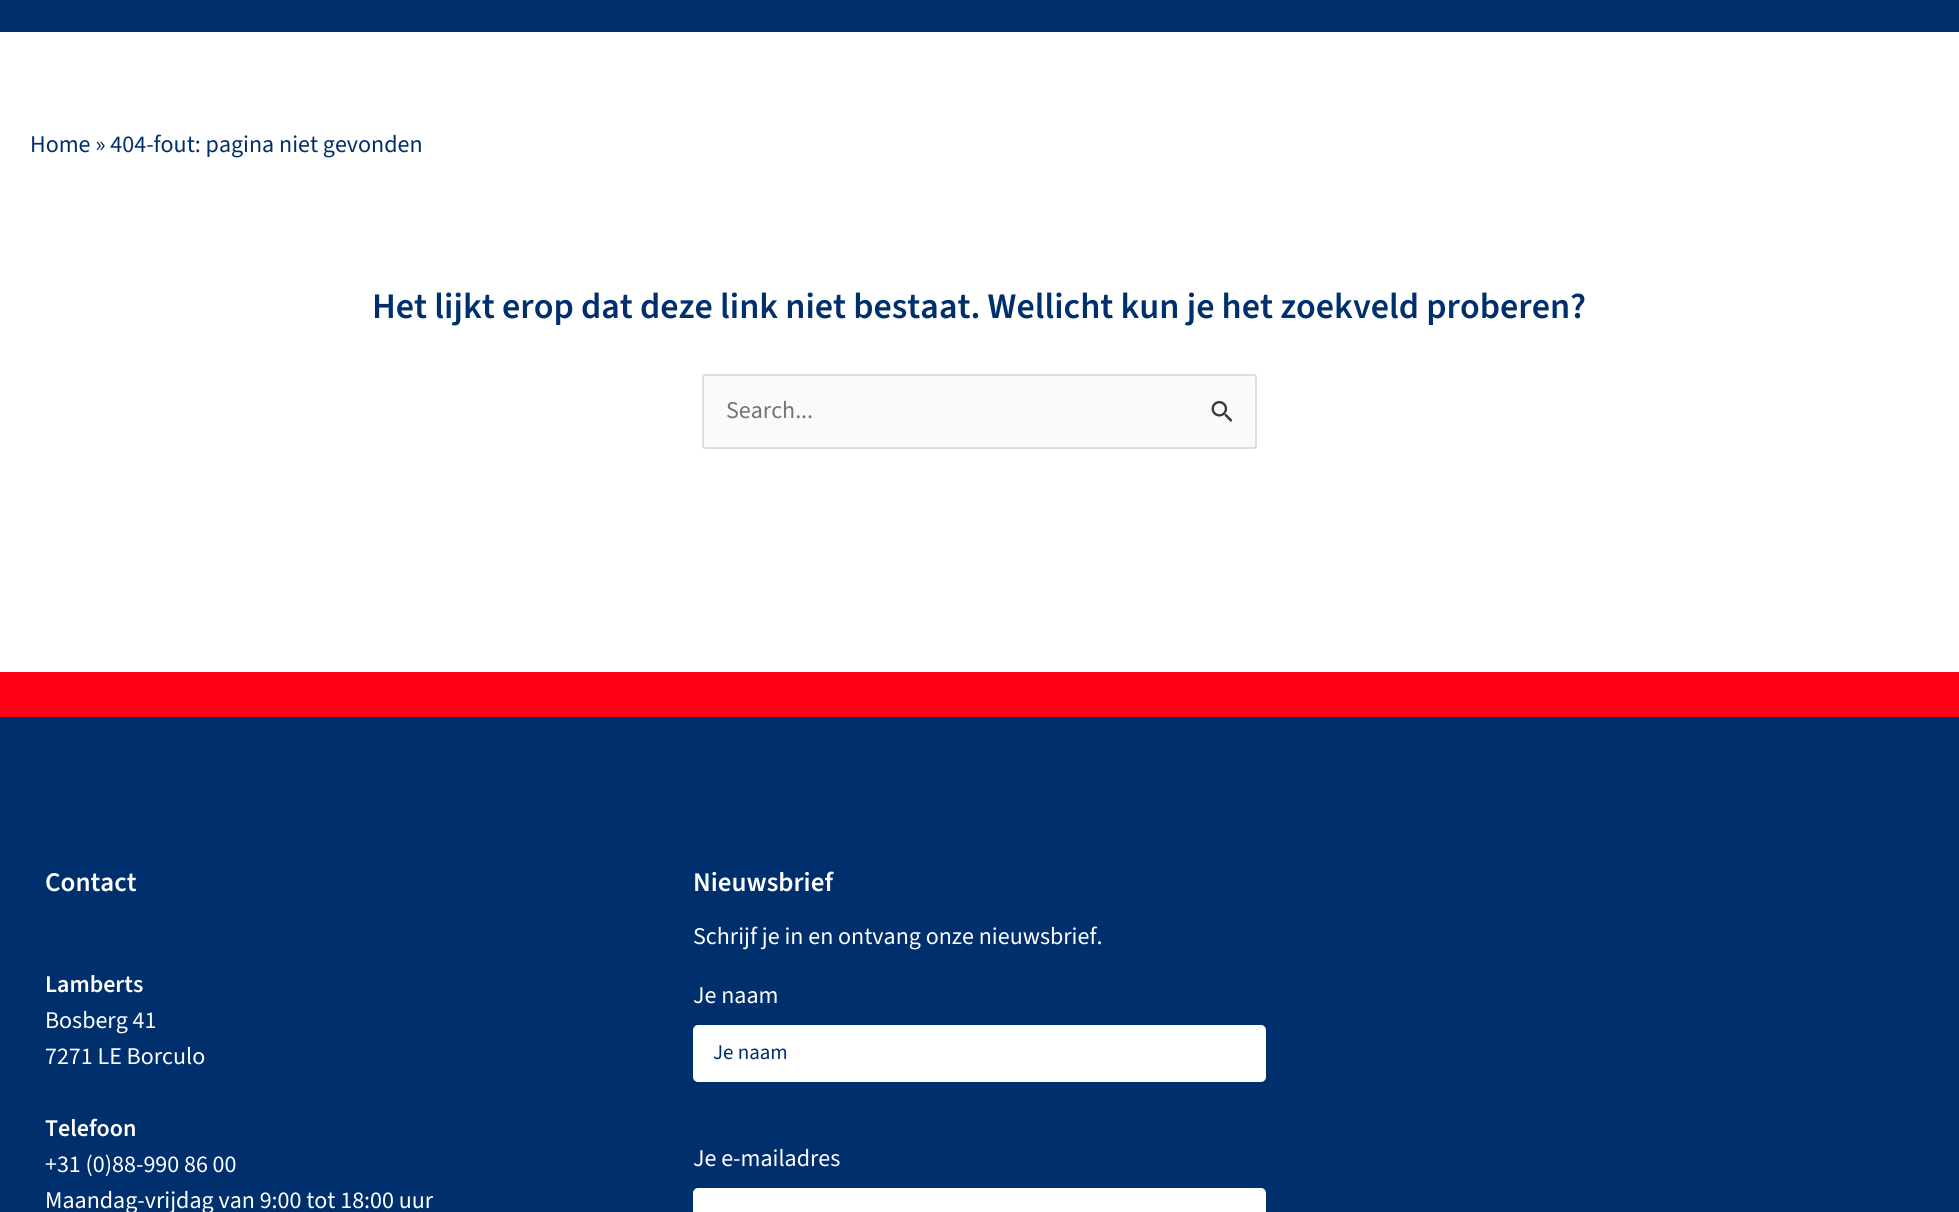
import math
import cairocffi as cairo

surface = cairo.ImageSurface(cairo.FORMAT_RGB24, 1959, 1212)
cr = cairo.Context(surface)
options = cairo.FontOptions()
options.set_hint_metrics(cairo.HINT_METRICS_OFF)
options.set_hint_style(cairo.HINT_STYLE_NONE)
cr.set_font_options(options)
cr.set_miter_limit(4)


def use_color(code):
    cr.set_source_rgb(*(v / 255 for v in bytes.fromhex(code[-6:])))


def round_rect(x, y, w, h, r):
    cr.new_sub_path()
    for i, (u, v) in enumerate([(x + w - r, y + h - r), (x + r, y + h - r), (x + r, y + r), (x + w - r, y + r)]):
        cr.arc(u, v, r, i * math.pi / 2, (i + 1) * math.pi / 2)
    cr.close_path()


def picture(path, x, y, w, h):
    cr.save()
    cr.set_source_surface(cairo.ImageSurface.create_from_png(path), x, y)
    cr.rectangle(x, y, w, h)
    cr.fill()
    cr.restore()


use_color("#ffffff")
cr.paint()
use_color("#002f6d")
cr.rectangle(0, 0, 1959, 32)
cr.fill()
cr.select_font_face("Source Sans 3")
cr.set_font_size(24)
cr.move_to(30, 152)
cr.show_text("Home » 404-fout: pagina niet gevonden")
cr.select_font_face("Source Sans 3 SemiBold")
cr.set_font_size(36)
cr.move_to(372, 318)
cr.show_text("Het lijkt erop dat deze link niet bestaat. Wellicht kun je het zoekveld proberen?")
use_color("#fafafa")
round_rect(703, 375, 553, 73, 2)
cr.fill_preserve()
use_color("#dddddd")
cr.stroke()
cr.select_font_face("Source Sans 3")
cr.set_font_size(24)
use_color("#757575")
cr.move_to(726, 418)
cr.show_text("Search...")
picture("img1.png", 1211, 401, 21, 21)
use_color("#002f6d")
cr.rectangle(0, 717, 1959, 495)
cr.fill()
use_color("#ff0017")
cr.rectangle(0, 672, 1959, 45)
cr.fill()
cr.select_font_face("Source Sans 3 SemiBold")
cr.set_font_size(27)
use_color("#ffffff")
cr.move_to(45, 891)
cr.show_text("Contact")
cr.set_font_size(24)
cr.move_to(45, 992)
cr.show_text("Lamberts")
cr.select_font_face("Source Sans 3")
cr.move_to(45, 1028)
cr.show_text("Bosberg 41")
cr.move_to(45, 1064)
cr.show_text("7271 LE Borculo")
cr.select_font_face("Source Sans 3 SemiBold")
cr.move_to(45, 1136)
cr.show_text("Telefoon")
cr.select_font_face("Source Sans 3")
cr.move_to(45, 1172)
cr.show_text("+31 (0)88-990 86 00")
cr.move_to(45, 1208)
cr.show_text("Maandag-vrijdag van 9:00 tot 18:00 uur")
cr.select_font_face("Source Sans 3 SemiBold")
cr.set_font_size(27)
cr.move_to(693, 891)
cr.show_text("Nieuwsbrief")
cr.select_font_face("Source Sans 3")
cr.set_font_size(24)
cr.move_to(693, 944)
cr.show_text("Schrijf je in en ontvang onze nieuwsbrief.")
cr.move_to(693, 1003)
cr.show_text("Je naam")
round_rect(694, 1026, 571, 55, 4)
cr.fill_preserve()
cr.stroke()
cr.set_font_size(21)
use_color("#002f6d")
cr.move_to(713, 1059)
cr.show_text("Je naam")
cr.set_font_size(24)
use_color("#ffffff")
cr.move_to(693, 1166)
cr.show_text("Je e-mailadres")
round_rect(694, 1189, 571, 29, 4)
cr.fill_preserve()
cr.stroke()
surface.write_to_png("result.png")
